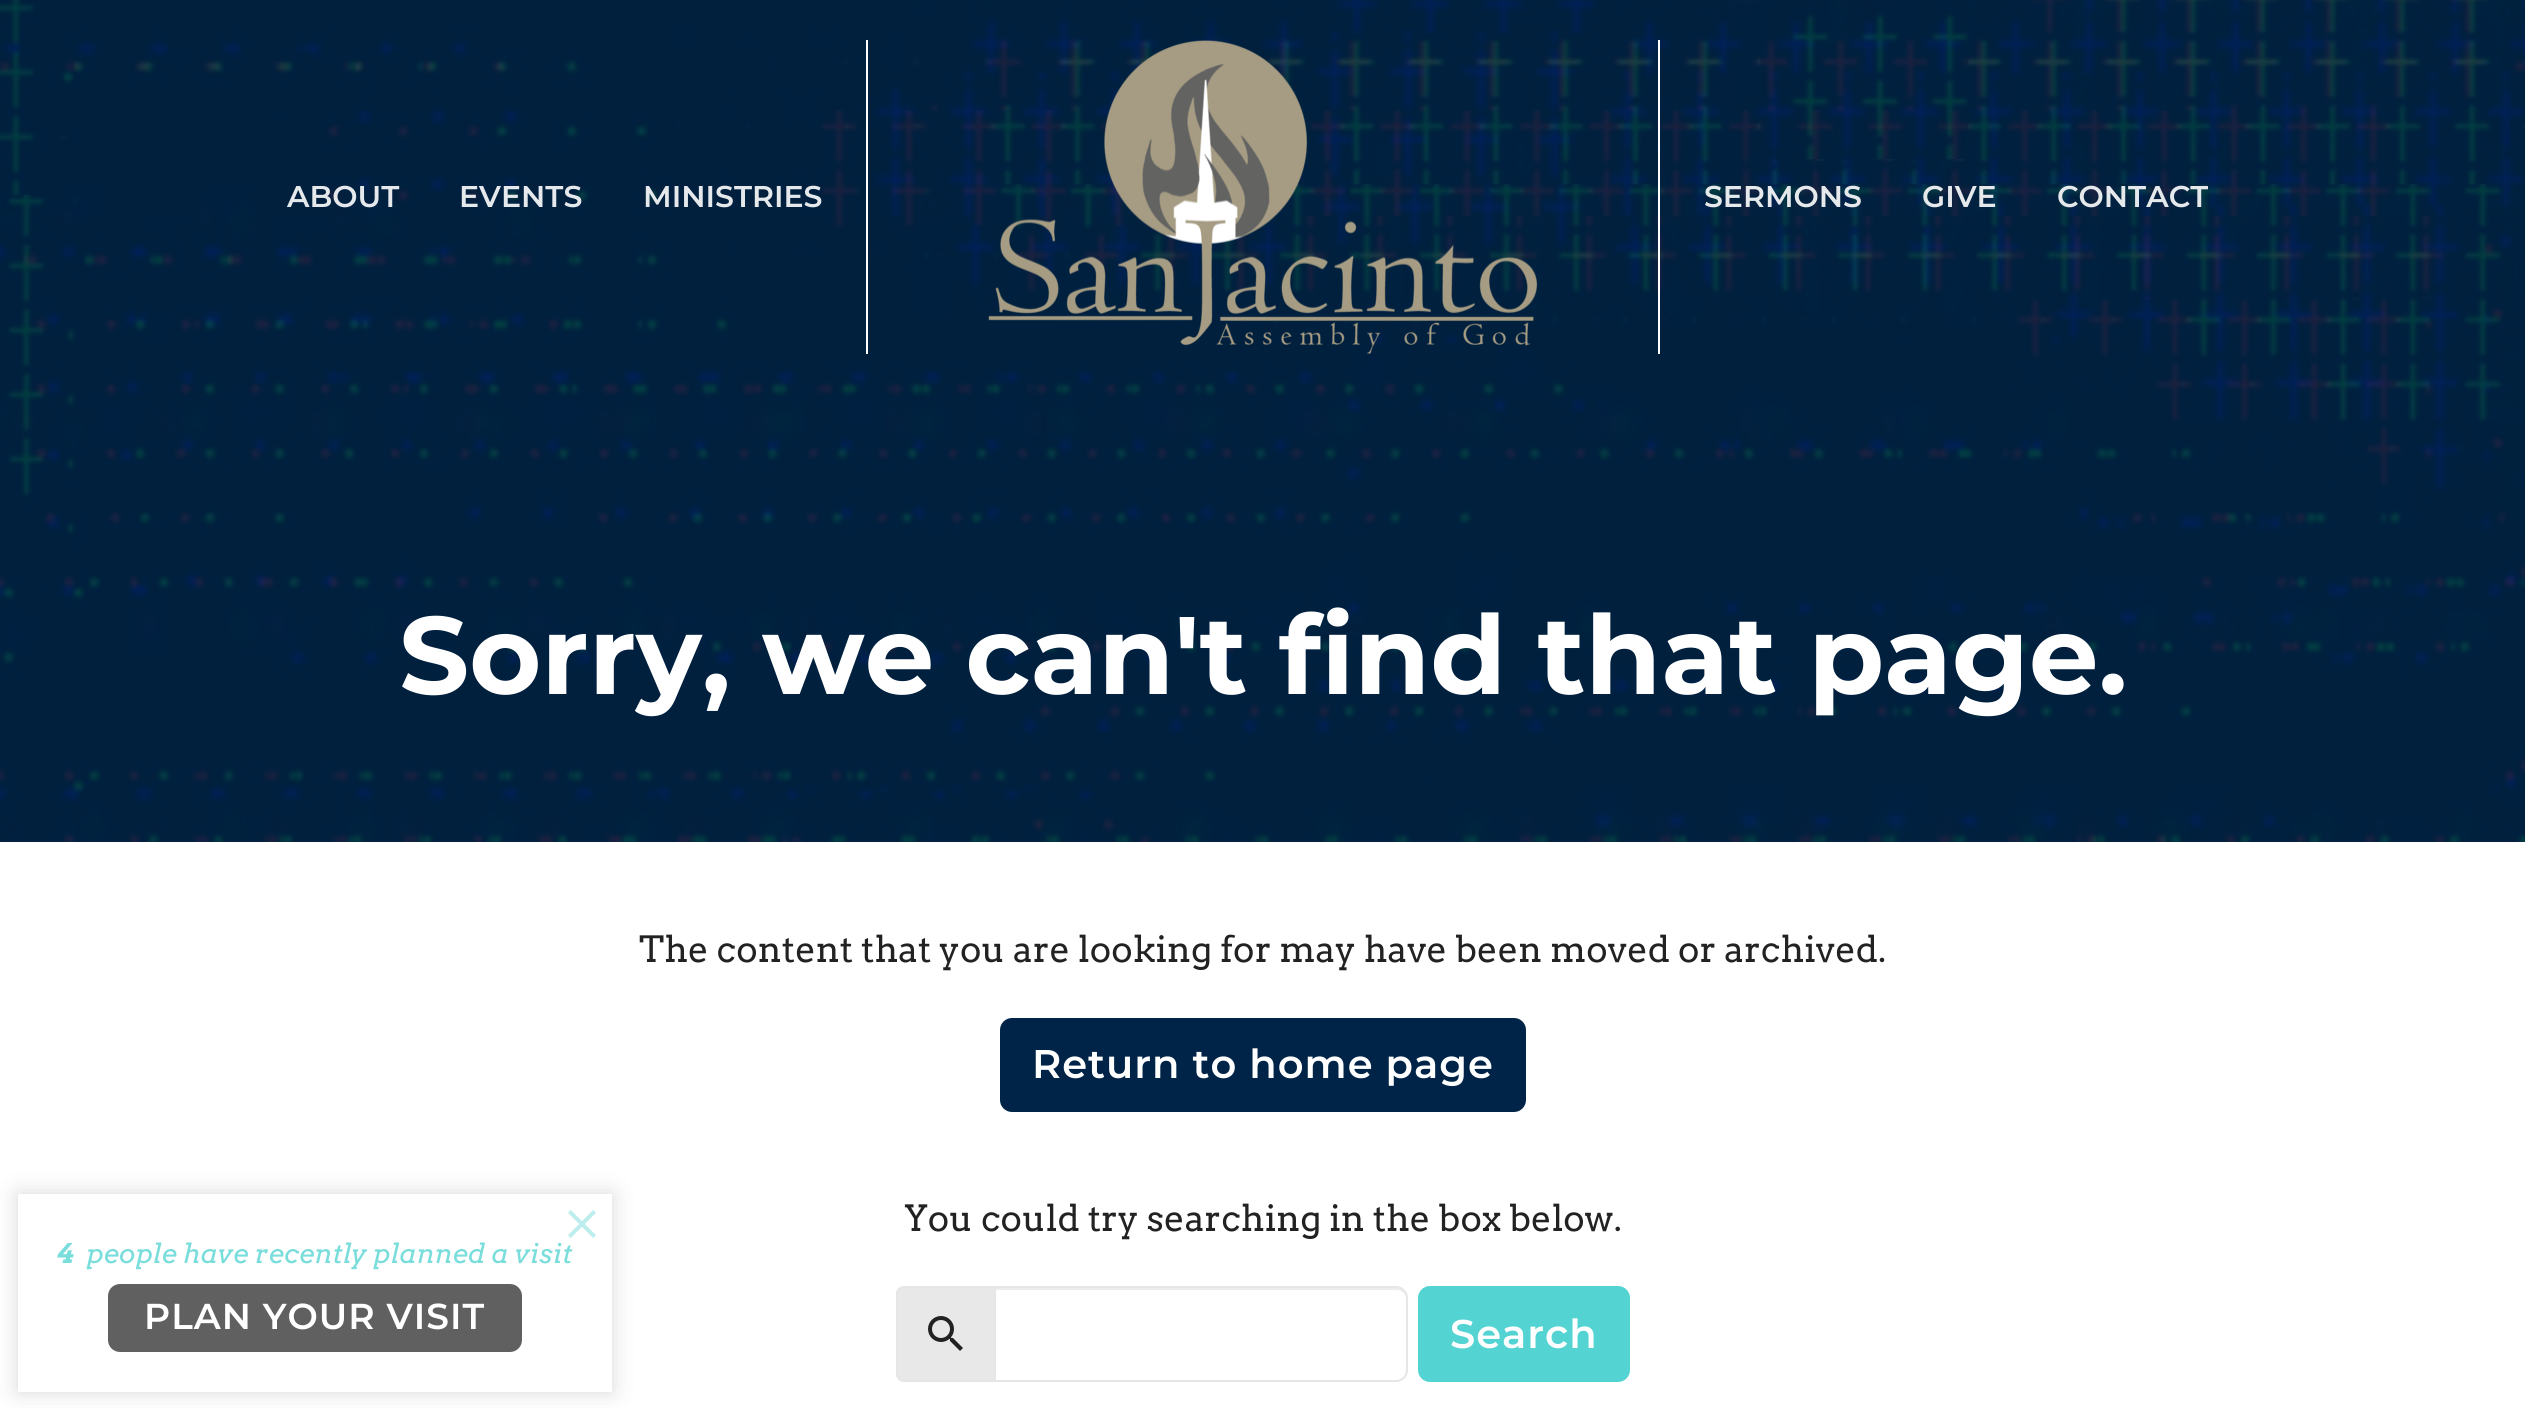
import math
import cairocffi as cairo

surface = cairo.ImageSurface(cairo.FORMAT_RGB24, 2525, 1408)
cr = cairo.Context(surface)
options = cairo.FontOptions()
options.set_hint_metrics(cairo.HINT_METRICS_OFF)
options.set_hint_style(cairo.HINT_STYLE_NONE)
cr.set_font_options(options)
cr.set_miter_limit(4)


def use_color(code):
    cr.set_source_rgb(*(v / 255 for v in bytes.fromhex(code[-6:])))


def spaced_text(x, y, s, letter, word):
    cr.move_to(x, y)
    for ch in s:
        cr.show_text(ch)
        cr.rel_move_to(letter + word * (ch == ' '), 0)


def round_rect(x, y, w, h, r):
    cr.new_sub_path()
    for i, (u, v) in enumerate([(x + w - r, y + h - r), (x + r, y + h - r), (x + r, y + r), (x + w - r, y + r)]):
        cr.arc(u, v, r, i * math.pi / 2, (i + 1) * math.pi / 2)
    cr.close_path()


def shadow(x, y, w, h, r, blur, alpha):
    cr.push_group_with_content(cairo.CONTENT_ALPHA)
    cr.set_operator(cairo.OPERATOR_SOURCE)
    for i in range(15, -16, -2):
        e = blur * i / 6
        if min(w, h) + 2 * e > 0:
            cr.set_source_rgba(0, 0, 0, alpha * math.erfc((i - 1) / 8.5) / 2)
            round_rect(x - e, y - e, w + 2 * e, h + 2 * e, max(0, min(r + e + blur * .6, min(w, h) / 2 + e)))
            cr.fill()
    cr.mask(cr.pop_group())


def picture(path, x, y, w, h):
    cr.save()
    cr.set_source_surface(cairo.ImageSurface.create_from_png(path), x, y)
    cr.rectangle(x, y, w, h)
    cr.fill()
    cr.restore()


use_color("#ffffff")
cr.paint()
picture("img2.png", 0, 0, 2525, 842)
cr.select_font_face("Montserrat SemiBold")
cr.set_font_size(30)
use_color("#e6e9ec")
cr.move_to(287, 207)
cr.show_text("ABOUT")
cr.move_to(459, 207)
cr.show_text("EVENTS")
cr.move_to(643, 207)
cr.show_text("MINISTRIES")
use_color("#ffffff")
cr.rectangle(1658, 40, 2, 314)
cr.fill()
cr.rectangle(866, 40, 2, 314)
cr.fill()
picture("img1.png", 988, 40, 550, 314)
use_color("#e6e9ec")
cr.move_to(1704, 207)
cr.show_text("SERMONS")
cr.move_to(1922, 207)
cr.show_text("GIVE")
cr.move_to(2057, 207)
cr.show_text("CONTACT")
cr.select_font_face("Montserrat", cairo.FONT_SLANT_NORMAL, cairo.FONT_WEIGHT_BOLD)
cr.set_font_size(110)
use_color("#ffffff")
cr.move_to(399, 694)
cr.show_text("Sorry, we can't find that page.")
cr.save()
cr.set_fill_rule(cairo.FILL_RULE_EVEN_ODD)
cr.new_path()
cr.move_to(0, 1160)
cr.line_to(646, 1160)
cr.line_to(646, 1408)
cr.line_to(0, 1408)
cr.close_path()
cr.move_to(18, 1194)
cr.line_to(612, 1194)
cr.line_to(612, 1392)
cr.line_to(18, 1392)
cr.close_path()
cr.clip()
use_color("#383838")
shadow(18, 1194, 594, 198, 0, 11, 0.2)
cr.restore()
picture("img3.png", 568, 1210, 28, 28)
cr.select_font_face("Arvo", cairo.FONT_SLANT_ITALIC, cairo.FONT_WEIGHT_BOLD)
cr.set_font_size(27)
use_color("#79dddb")
cr.move_to(57, 1263)
cr.show_text("4")
cr.select_font_face("Arvo", cairo.FONT_SLANT_ITALIC)
cr.move_to(86, 1263)
cr.show_text("people have recently planned a visit")
use_color("#606060")
round_rect(108, 1284, 414, 68, 12)
cr.fill()
cr.select_font_face("Montserrat SemiBold")
cr.set_font_size(36)
use_color("#ffffff")
spaced_text(144, 1329, "PLAN YOUR VISIT", 1, 0)
cr.select_font_face("Arvo")
use_color("#222222")
cr.move_to(639, 962)
cr.show_text("The content that you are looking for may have been moved or archived.")
use_color("#002447")
round_rect(1000, 1018, 526, 94, 12)
cr.fill()
cr.select_font_face("Montserrat SemiBold")
cr.set_font_size(40)
use_color("#ffffff")
spaced_text(1032, 1078, "Return to home page", 1, 0)
cr.select_font_face("Arvo")
cr.set_font_size(36)
use_color("#222222")
cr.move_to(904, 1231)
cr.show_text("You could try searching in the box below.")
use_color("#e8e8e8")
cr.new_path()
cr.move_to(904, 1286)
cr.line_to(994, 1286)
cr.line_to(994, 1382)
cr.line_to(904, 1382)
cr.curve_to(899.5, 1382, 896, 1378.5, 896, 1374)
cr.line_to(896, 1294)
cr.curve_to(896, 1289.5, 899.5, 1286, 904, 1286)
cr.close_path()
cr.fill()
use_color("#e6e6e6")
cr.set_fill_rule(cairo.FILL_RULE_EVEN_ODD)
cr.new_path()
cr.move_to(904, 1286)
cr.line_to(994, 1286)
cr.line_to(994, 1382)
cr.line_to(904, 1382)
cr.curve_to(900, 1382, 896, 1378, 896, 1374)
cr.line_to(896, 1294)
cr.curve_to(896, 1290, 900, 1286, 904, 1286)
cr.close_path()
cr.move_to(904, 1288)
cr.line_to(994, 1288)
cr.line_to(994, 1380)
cr.line_to(904, 1380)
cr.curve_to(901, 1380, 898, 1377, 898, 1374)
cr.line_to(898, 1294)
cr.curve_to(898, 1291, 901, 1288, 904, 1288)
cr.close_path()
cr.fill()
picture("img4.png", 928, 1316, 35, 35)
use_color("#ececec")
cr.set_fill_rule(cairo.FILL_RULE_WINDING)
cr.new_path()
cr.move_to(996, 1290)
cr.line_to(1396, 1290)
cr.curve_to(1402, 1290, 1406, 1294, 1406, 1300)
cr.curve_to(1406, 1295, 1404, 1289, 1398, 1288)
cr.line_to(996, 1288)
cr.close_path()
cr.fill()
cr.new_path()
cr.move_to(995, 1287)
cr.line_to(1396, 1287)
cr.curve_to(1402, 1287, 1407, 1292, 1407, 1298)
cr.line_to(1407, 1370)
cr.curve_to(1407, 1376, 1402, 1381, 1396, 1381)
cr.line_to(995, 1381)
cr.close_path()
use_color("#e6e6e6")
cr.stroke()
use_color("#53d3d1")
round_rect(1418, 1286, 212, 96, 12)
cr.fill()
cr.select_font_face("Montserrat SemiBold")
cr.set_font_size(40)
use_color("#ffffff")
spaced_text(1450, 1348, "Search", 1, 0)
surface.write_to_png("result.png")
